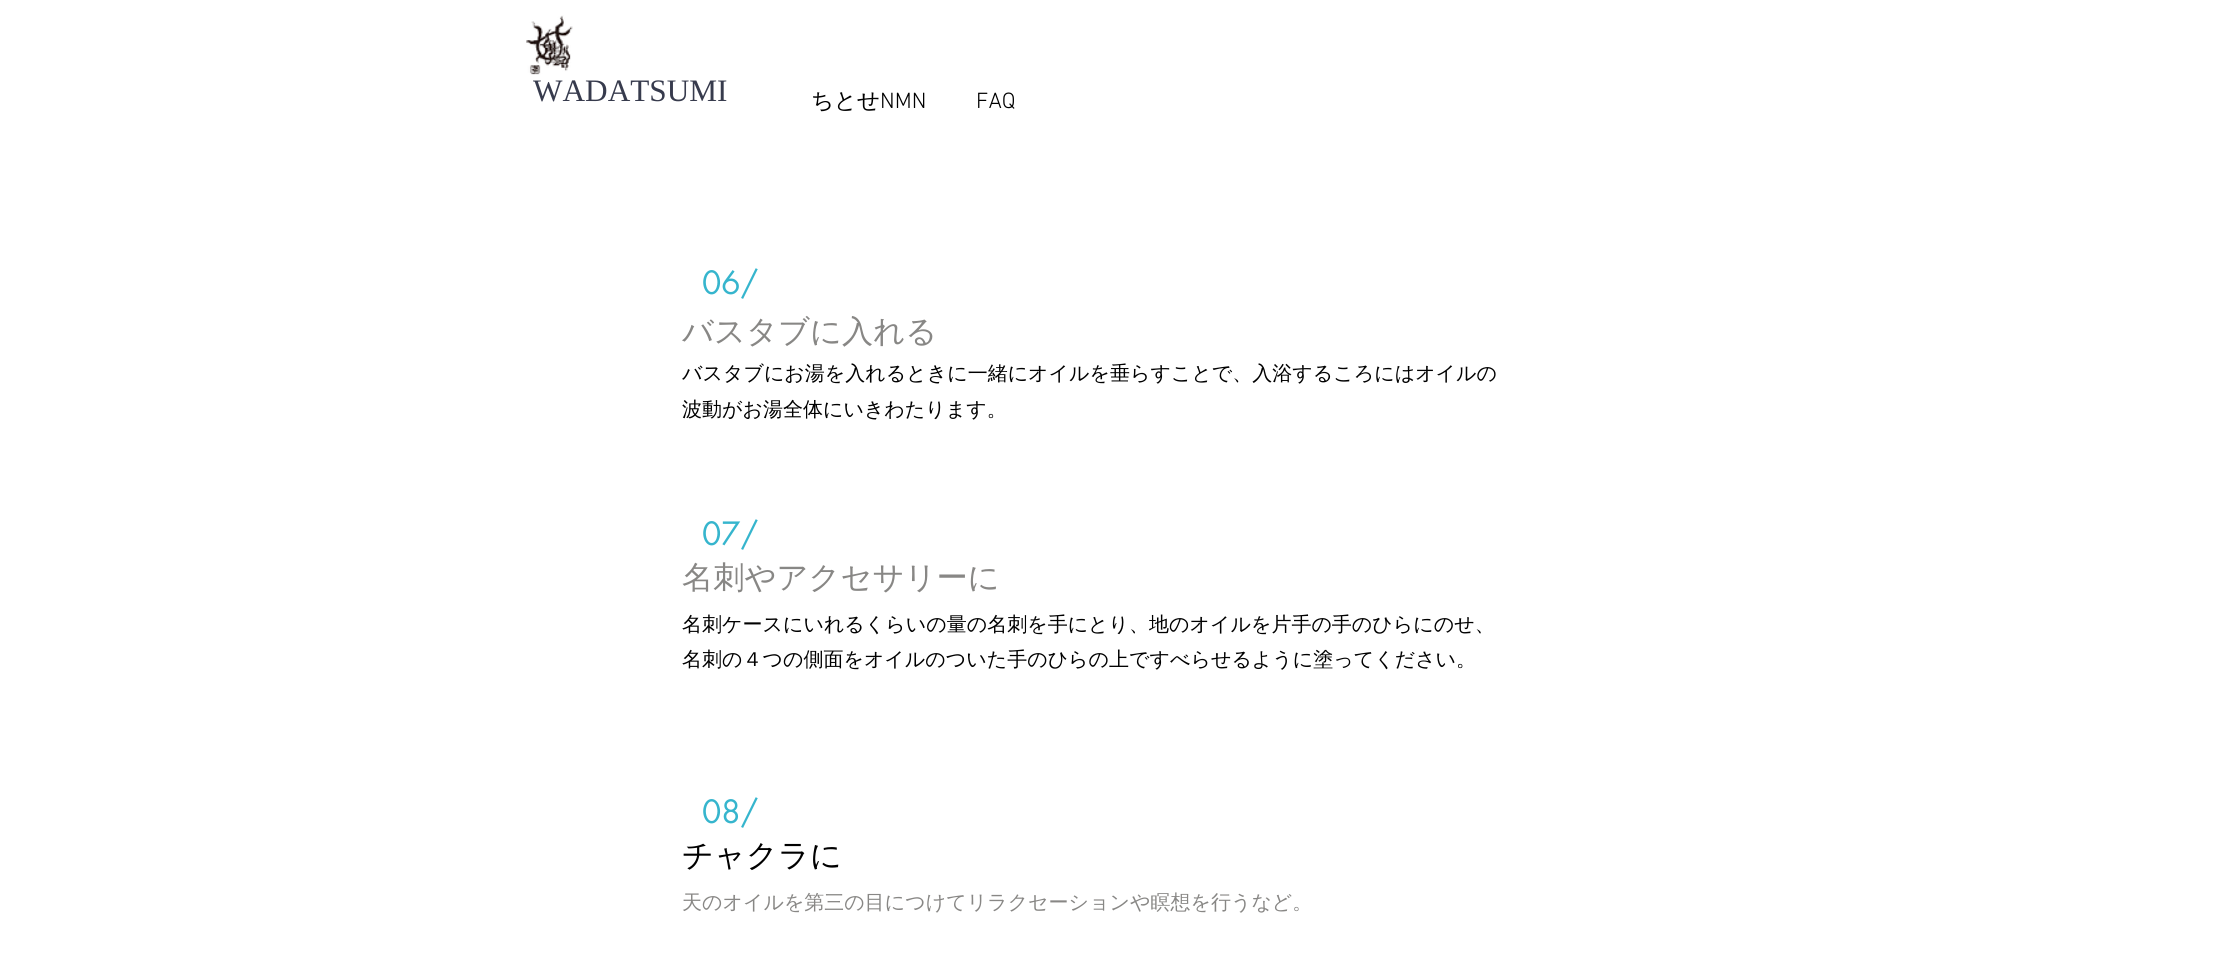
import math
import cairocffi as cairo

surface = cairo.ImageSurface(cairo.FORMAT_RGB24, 2236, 959)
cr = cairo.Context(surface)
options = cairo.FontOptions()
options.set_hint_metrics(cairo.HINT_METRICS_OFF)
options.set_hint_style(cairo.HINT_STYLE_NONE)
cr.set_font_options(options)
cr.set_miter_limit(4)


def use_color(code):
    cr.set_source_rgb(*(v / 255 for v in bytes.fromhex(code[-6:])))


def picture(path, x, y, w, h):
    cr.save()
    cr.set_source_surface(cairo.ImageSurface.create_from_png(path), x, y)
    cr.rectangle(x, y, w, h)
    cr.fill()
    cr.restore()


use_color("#ffffff")
cr.paint()
picture("img1.png", 526, 15, 47, 60)
cr.select_font_face("Liberation Serif")
cr.set_font_size(31.25)
use_color("#373b4d")
cr.move_to(533, 101)
cr.show_text("WADATSUMI")
cr.select_font_face("WenQuanYi Zen Hei Medium")
cr.set_font_size(22.5)
use_color("#000000")
cr.move_to(811, 108)
cr.show_text("ちとせ")
cr.select_font_face("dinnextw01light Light")
cr.move_to(880, 108)
cr.show_text("NMN")
cr.move_to(976, 108)
cr.show_text("FAQ")
cr.select_font_face("futura")
cr.set_font_size(31.25)
use_color("#36b5cd")
cr.move_to(702, 294)
cr.show_text("06/")
cr.select_font_face("WenQuanYi Zen Hei Medium")
use_color("#888785")
cr.move_to(682, 342)
cr.show_text("バスタブに入れる")
cr.set_font_size(20)
use_color("#000000")
cr.move_to(682, 380)
cr.show_text("バスタブにお湯を入れるときに一緒にオイルを垂らすことで、入浴するころにはオイルの")
cr.move_to(682, 416)
cr.show_text("波動がお湯全体にいきわたります。")
cr.select_font_face("futura")
cr.set_font_size(31.25)
use_color("#36b5cd")
cr.move_to(702, 545)
cr.show_text("07/")
cr.select_font_face("WenQuanYi Zen Hei Medium")
use_color("#888785")
cr.move_to(682, 588)
cr.show_text("名刺やアクセサリーに")
cr.set_font_size(20)
use_color("#000000")
cr.move_to(682, 631)
cr.show_text("名刺ケースにいれるくらいの量の名刺を手にとり、地のオイルを片手の手のひらにのせ、")
cr.move_to(682, 666)
cr.show_text("名刺の４つの側面をオイルのついた手のひらの上ですべらせるように塗ってください。")
cr.select_font_face("futura")
cr.set_font_size(31.25)
use_color("#36b5cd")
cr.move_to(702, 823)
cr.show_text("08/")
cr.select_font_face("WenQuanYi Zen Hei Medium")
use_color("#000000")
cr.move_to(682, 866)
cr.show_text("チャクラに")
cr.set_font_size(20)
use_color("#888785")
cr.move_to(682, 909)
cr.show_text("天のオイルを第三の目につけてリラクセーションや瞑想を行うなど。")
surface.write_to_png("result.png")
